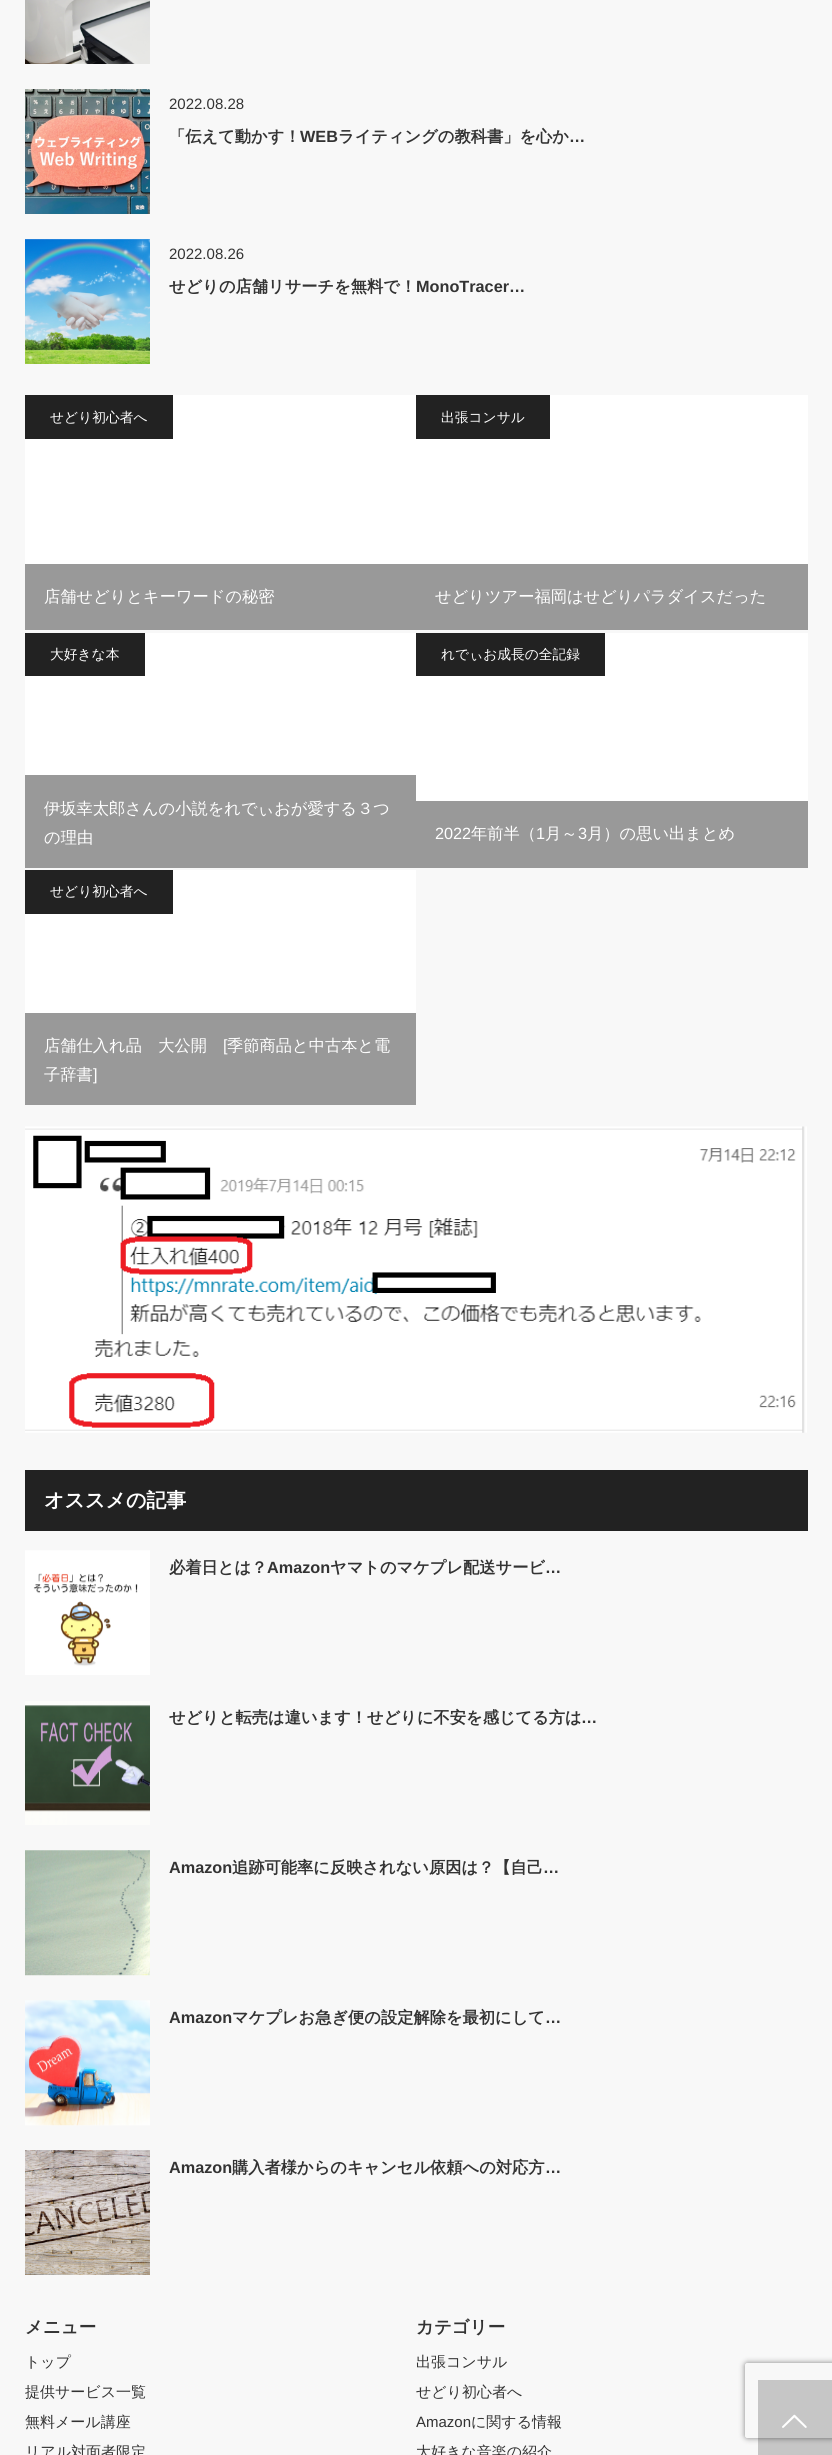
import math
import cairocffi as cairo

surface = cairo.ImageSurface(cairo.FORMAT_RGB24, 832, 2455)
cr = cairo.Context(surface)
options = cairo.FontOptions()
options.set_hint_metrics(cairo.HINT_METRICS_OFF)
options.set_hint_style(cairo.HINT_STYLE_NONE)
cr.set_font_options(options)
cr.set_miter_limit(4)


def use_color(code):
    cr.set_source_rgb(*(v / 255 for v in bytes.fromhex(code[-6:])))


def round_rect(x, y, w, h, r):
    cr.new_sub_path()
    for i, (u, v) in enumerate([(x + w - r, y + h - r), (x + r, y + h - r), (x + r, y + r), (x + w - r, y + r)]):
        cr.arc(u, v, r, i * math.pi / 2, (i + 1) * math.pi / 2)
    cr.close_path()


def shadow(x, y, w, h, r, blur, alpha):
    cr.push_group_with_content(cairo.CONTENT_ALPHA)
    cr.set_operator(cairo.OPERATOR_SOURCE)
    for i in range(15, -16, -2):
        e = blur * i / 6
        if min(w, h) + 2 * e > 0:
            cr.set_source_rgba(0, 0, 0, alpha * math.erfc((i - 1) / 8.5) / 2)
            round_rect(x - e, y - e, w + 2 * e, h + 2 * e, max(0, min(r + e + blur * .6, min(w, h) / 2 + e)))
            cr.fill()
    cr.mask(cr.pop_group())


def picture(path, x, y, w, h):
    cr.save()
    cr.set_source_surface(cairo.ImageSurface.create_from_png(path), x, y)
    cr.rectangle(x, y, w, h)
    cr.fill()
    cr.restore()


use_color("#f8f8f8")
cr.paint()
picture("img1.png", 25, 0, 125, 64)
picture("img2.png", 25, 89, 125, 125)
cr.select_font_face("Liberation Sans")
cr.set_font_size(15)
use_color("#333333")
cr.move_to(169, 109)
cr.show_text("2022.08.28")
cr.select_font_face("WenQuanYi Zen Hei", cairo.FONT_SLANT_NORMAL, cairo.FONT_WEIGHT_BOLD)
cr.set_font_size(16.25)
cr.move_to(169, 142)
cr.show_text("「伝えて動かす！")
cr.select_font_face("Liberation Sans", cairo.FONT_SLANT_NORMAL, cairo.FONT_WEIGHT_BOLD)
cr.move_to(300, 142)
cr.show_text("WEB")
cr.select_font_face("WenQuanYi Zen Hei", cairo.FONT_SLANT_NORMAL, cairo.FONT_WEIGHT_BOLD)
cr.move_to(338, 142)
cr.show_text("ライティングの教科書」を心か")
cr.select_font_face("Liberation Sans", cairo.FONT_SLANT_NORMAL, cairo.FONT_WEIGHT_BOLD)
cr.move_to(569, 142)
cr.show_text("…")
picture("img3.png", 25, 239, 125, 125)
cr.select_font_face("Liberation Sans")
cr.set_font_size(15)
cr.move_to(169, 259)
cr.show_text("2022.08.26")
cr.select_font_face("WenQuanYi Zen Hei", cairo.FONT_SLANT_NORMAL, cairo.FONT_WEIGHT_BOLD)
cr.set_font_size(16.25)
cr.move_to(169, 292)
cr.show_text("せどりの店舗リサーチを無料で！")
cr.select_font_face("Liberation Sans", cairo.FONT_SLANT_NORMAL, cairo.FONT_WEIGHT_BOLD)
cr.move_to(416, 292)
cr.show_text("MonoTracer…")
use_color("#ffffff")
cr.rectangle(25, 395, 783, 169)
cr.fill()
use_color("#222222")
cr.rectangle(25, 395, 148, 44)
cr.fill()
cr.select_font_face("WenQuanYi Zen Hei Medium")
cr.set_font_size(13.75)
use_color("#ffffff")
cr.move_to(50, 422)
cr.show_text("せどり初心者へ")
use_color("#999999")
cr.rectangle(25, 564, 783, 66)
cr.fill()
cr.set_font_size(16.25)
use_color("#ffffff")
cr.move_to(44, 602)
cr.show_text("店舗せどりとキーワードの秘密")
use_color("#222222")
cr.rectangle(416, 395, 134, 44)
cr.fill()
cr.set_font_size(13.75)
use_color("#ffffff")
cr.move_to(441, 422)
cr.show_text("出張コンサル")
cr.set_font_size(16.25)
cr.move_to(435, 602)
cr.show_text("せどりツアー福岡はせどりパラダイスだった")
cr.rectangle(25, 633, 391, 142)
cr.fill()
use_color("#222222")
cr.rectangle(25, 633, 120, 43)
cr.fill()
cr.set_font_size(13.75)
use_color("#ffffff")
cr.move_to(50, 659)
cr.show_text("大好きな本")
use_color("#999999")
cr.rectangle(25, 775, 391, 93)
cr.fill()
cr.set_font_size(16.25)
use_color("#ffffff")
cr.move_to(44, 814)
cr.show_text("伊坂幸太郎さんの小説をれでぃおが愛する３つ")
cr.move_to(44, 843)
cr.show_text("の理由")
cr.rectangle(416, 633, 392, 168)
cr.fill()
use_color("#222222")
cr.rectangle(416, 633, 189, 43)
cr.fill()
cr.set_font_size(13.75)
use_color("#ffffff")
cr.move_to(441, 659)
cr.show_text("れでぃお成長の全記録")
use_color("#999999")
cr.rectangle(416, 801, 392, 67)
cr.fill()
cr.select_font_face("Liberation Sans")
cr.set_font_size(16.25)
use_color("#ffffff")
cr.move_to(435, 839)
cr.show_text("2022")
cr.select_font_face("WenQuanYi Zen Hei Medium")
cr.move_to(471, 839)
cr.show_text("年前半（")
cr.select_font_face("Liberation Sans")
cr.move_to(536, 839)
cr.show_text("1")
cr.select_font_face("WenQuanYi Zen Hei Medium")
cr.move_to(545, 839)
cr.show_text("月～")
cr.select_font_face("Liberation Sans")
cr.move_to(578, 839)
cr.show_text("3")
cr.select_font_face("WenQuanYi Zen Hei Medium")
cr.move_to(587, 839)
cr.show_text("月）の思い出まとめ")
cr.rectangle(25, 870, 391, 143)
cr.fill()
use_color("#222222")
cr.rectangle(25, 870, 148, 44)
cr.fill()
cr.set_font_size(13.75)
use_color("#ffffff")
cr.move_to(50, 896)
cr.show_text("せどり初心者へ")
use_color("#999999")
cr.rectangle(25, 1013, 391, 92)
cr.fill()
cr.set_font_size(16.25)
use_color("#ffffff")
cr.move_to(44, 1051)
cr.show_text("店舗仕入れ品　大公開")
cr.select_font_face("Liberation Sans")
cr.move_to(223, 1051)
cr.show_text("[")
cr.select_font_face("WenQuanYi Zen Hei Medium")
cr.move_to(227, 1051)
cr.show_text("季節商品と中古本と電")
cr.move_to(44, 1080)
cr.show_text("子辞書")
cr.select_font_face("Liberation Sans")
cr.move_to(93, 1080)
cr.show_text("]")
picture("img4.png", 25, 1126, 782, 307)
use_color("#222222")
cr.rectangle(25, 1470, 783, 61)
cr.fill()
cr.select_font_face("WenQuanYi Zen Hei", cairo.FONT_SLANT_NORMAL, cairo.FONT_WEIGHT_BOLD)
cr.set_font_size(20)
use_color("#ffffff")
cr.move_to(44, 1507)
cr.show_text("オススメの記事")
picture("img5.png", 25, 1550, 125, 125)
cr.set_font_size(16.25)
use_color("#333333")
cr.move_to(169, 1573)
cr.show_text("必着日とは？")
cr.select_font_face("Liberation Sans", cairo.FONT_SLANT_NORMAL, cairo.FONT_WEIGHT_BOLD)
cr.move_to(267, 1573)
cr.show_text("Amazon")
cr.select_font_face("WenQuanYi Zen Hei", cairo.FONT_SLANT_NORMAL, cairo.FONT_WEIGHT_BOLD)
cr.move_to(330, 1573)
cr.show_text("ヤマトのマケプレ配送サービ")
cr.select_font_face("Liberation Sans", cairo.FONT_SLANT_NORMAL, cairo.FONT_WEIGHT_BOLD)
cr.move_to(545, 1573)
cr.show_text("…")
picture("img6.png", 25, 1701, 125, 124)
cr.select_font_face("WenQuanYi Zen Hei", cairo.FONT_SLANT_NORMAL, cairo.FONT_WEIGHT_BOLD)
cr.move_to(169, 1723)
cr.show_text("せどりと転売は違います！せどりに不安を感じてる方は")
cr.select_font_face("Liberation Sans", cairo.FONT_SLANT_NORMAL, cairo.FONT_WEIGHT_BOLD)
cr.move_to(581, 1723)
cr.show_text("…")
picture("img7.png", 25, 1850, 125, 126)
cr.move_to(169, 1873)
cr.show_text("Amazon")
cr.select_font_face("WenQuanYi Zen Hei", cairo.FONT_SLANT_NORMAL, cairo.FONT_WEIGHT_BOLD)
cr.move_to(232, 1873)
cr.show_text("追跡可能率に反映されない原因は？【自己")
cr.select_font_face("Liberation Sans", cairo.FONT_SLANT_NORMAL, cairo.FONT_WEIGHT_BOLD)
cr.move_to(543, 1873)
cr.show_text("…")
picture("img8.png", 25, 2000, 125, 126)
cr.move_to(169, 2023)
cr.show_text("Amazon")
cr.select_font_face("WenQuanYi Zen Hei", cairo.FONT_SLANT_NORMAL, cairo.FONT_WEIGHT_BOLD)
cr.move_to(232, 2023)
cr.show_text("マケプレお急ぎ便の設定解除を最初にして")
cr.select_font_face("Liberation Sans", cairo.FONT_SLANT_NORMAL, cairo.FONT_WEIGHT_BOLD)
cr.move_to(545, 2023)
cr.show_text("…")
picture("img9.png", 25, 2150, 125, 125)
cr.move_to(169, 2173)
cr.show_text("Amazon")
cr.select_font_face("WenQuanYi Zen Hei", cairo.FONT_SLANT_NORMAL, cairo.FONT_WEIGHT_BOLD)
cr.move_to(232, 2173)
cr.show_text("購入者様からのキャンセル依頼への対応方")
cr.select_font_face("Liberation Sans", cairo.FONT_SLANT_NORMAL, cairo.FONT_WEIGHT_BOLD)
cr.move_to(545, 2173)
cr.show_text("…")
cr.select_font_face("WenQuanYi Zen Hei", cairo.FONT_SLANT_NORMAL, cairo.FONT_WEIGHT_BOLD)
cr.set_font_size(17.5)
cr.move_to(25, 2333)
cr.show_text("メニュー")
cr.select_font_face("WenQuanYi Zen Hei Medium")
cr.set_font_size(15)
cr.move_to(25, 2367)
cr.show_text("トップ")
cr.move_to(25, 2397)
cr.show_text("提供サービス一覧")
cr.move_to(25, 2427)
cr.show_text("無料メール講座")
cr.move_to(25, 2457)
cr.show_text("リアル対面者限定")
cr.select_font_face("WenQuanYi Zen Hei", cairo.FONT_SLANT_NORMAL, cairo.FONT_WEIGHT_BOLD)
cr.set_font_size(17.5)
cr.move_to(416, 2333)
cr.show_text("カテゴリー")
cr.select_font_face("WenQuanYi Zen Hei Medium")
cr.set_font_size(15)
cr.move_to(416, 2367)
cr.show_text("出張コンサル")
cr.move_to(416, 2397)
cr.show_text("せどり初心者へ")
cr.select_font_face("Liberation Sans")
cr.move_to(416, 2427)
cr.show_text("Amazon")
cr.select_font_face("WenQuanYi Zen Hei Medium")
cr.move_to(471, 2427)
cr.show_text("に関する情報")
cr.move_to(416, 2457)
cr.show_text("大好きな音楽の紹介")
cr.save()
cr.set_fill_rule(cairo.FILL_RULE_EVEN_ODD)
cr.new_path()
cr.move_to(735, 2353)
cr.line_to(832, 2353)
cr.line_to(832, 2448)
cr.line_to(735, 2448)
cr.close_path()
cr.move_to(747.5, 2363)
cr.line_to(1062.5, 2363)
cr.curve_to(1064, 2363, 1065, 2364, 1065, 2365.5)
cr.line_to(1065, 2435.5)
cr.curve_to(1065, 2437, 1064, 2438, 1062.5, 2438)
cr.line_to(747.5, 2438)
cr.curve_to(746, 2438, 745, 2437, 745, 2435.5)
cr.line_to(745, 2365.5)
cr.curve_to(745, 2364, 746, 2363, 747.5, 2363)
cr.close_path()
cr.clip()
use_color("#808080")
shadow(745, 2363, 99, 75, 2.5, 3, 1)
cr.restore()
cr.set_source_rgba(0, 0, 0, 0.2)
cr.rectangle(758, 2380, 74, 75)
cr.fill()
picture("img10.png", 782, 2414, 25, 14)
surface.write_to_png("result.png")
